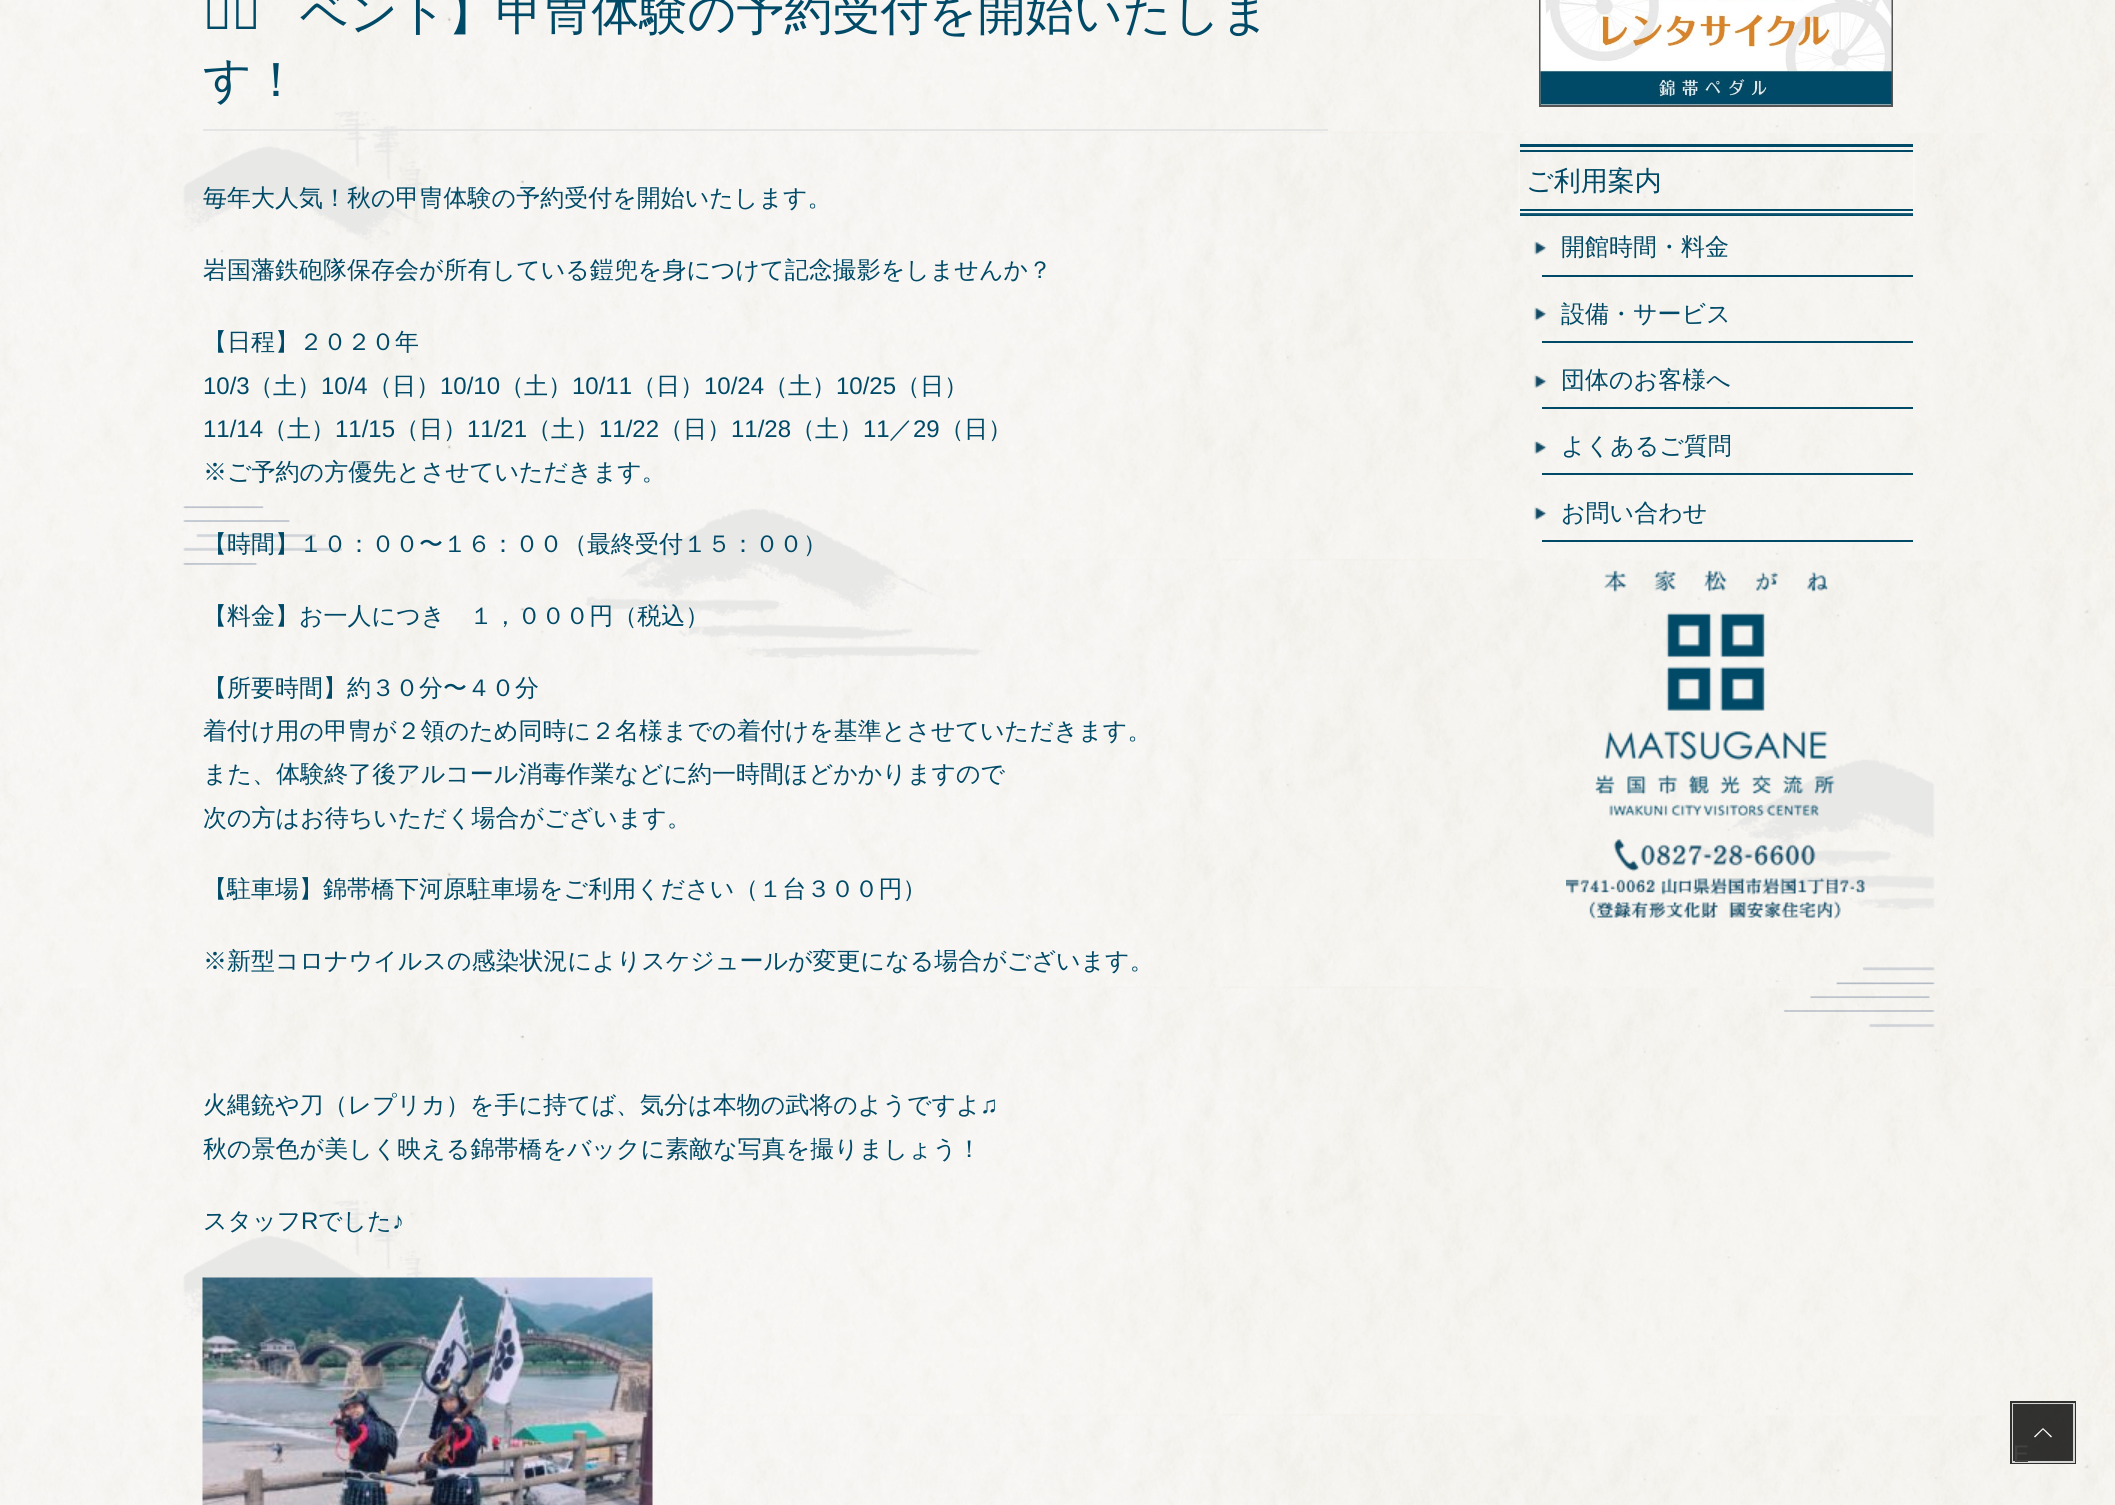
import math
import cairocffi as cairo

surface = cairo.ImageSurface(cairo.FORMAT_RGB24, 2115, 1505)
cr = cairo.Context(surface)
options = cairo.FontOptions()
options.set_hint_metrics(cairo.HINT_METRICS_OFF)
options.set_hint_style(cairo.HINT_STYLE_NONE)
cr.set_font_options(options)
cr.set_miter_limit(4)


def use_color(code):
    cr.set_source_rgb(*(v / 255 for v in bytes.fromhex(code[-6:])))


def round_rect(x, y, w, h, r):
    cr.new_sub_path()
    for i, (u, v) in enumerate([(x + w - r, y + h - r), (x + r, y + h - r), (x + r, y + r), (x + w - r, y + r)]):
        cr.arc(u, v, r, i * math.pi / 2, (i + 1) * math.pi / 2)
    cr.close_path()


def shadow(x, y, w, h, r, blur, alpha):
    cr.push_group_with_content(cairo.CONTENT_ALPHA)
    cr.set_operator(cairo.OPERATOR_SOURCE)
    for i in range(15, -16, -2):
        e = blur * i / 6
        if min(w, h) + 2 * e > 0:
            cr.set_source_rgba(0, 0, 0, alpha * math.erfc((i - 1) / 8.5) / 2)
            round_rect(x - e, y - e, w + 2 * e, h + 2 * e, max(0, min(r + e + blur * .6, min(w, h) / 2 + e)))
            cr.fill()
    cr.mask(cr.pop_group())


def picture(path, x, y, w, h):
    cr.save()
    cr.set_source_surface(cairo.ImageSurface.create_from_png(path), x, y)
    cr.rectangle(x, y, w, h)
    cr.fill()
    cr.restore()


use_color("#ffffff")
cr.paint()
picture("img1.png", 0, 0, 2115, 1505)
picture("img2.png", 182, 111, 1753, 1210)
use_color("#e5e5e5")
cr.rectangle(203, 129, 1125, 2)
cr.fill()
cr.select_font_face("Noto Sans Medium")
cr.set_font_size(48)
use_color("#004a67")
cr.move_to(203, 29)
cr.show_text("【イ")
cr.select_font_face("WenQuanYi Zen Hei Medium")
cr.move_to(300, 29)
cr.show_text("ベント】甲冑体験の予約受付を開始いたしま")
cr.move_to(203, 96)
cr.show_text("す！")
cr.set_font_size(24)
cr.move_to(203, 206)
cr.show_text("毎年大人気！秋の甲冑体験の予約受付を開始いたします。")
cr.move_to(203, 278)
cr.show_text("岩国藩鉄砲隊保存会が所有している鎧兜を身につけて記念撮影をしませんか？")
cr.move_to(203, 350)
cr.show_text("【日程】２０２０年")
cr.select_font_face("Liberation Sans")
cr.move_to(203, 394)
cr.show_text("10/3")
cr.select_font_face("WenQuanYi Zen Hei Medium")
cr.move_to(249, 394)
cr.show_text("（土）")
cr.select_font_face("Liberation Sans")
cr.move_to(321, 394)
cr.show_text("10/4")
cr.select_font_face("WenQuanYi Zen Hei Medium")
cr.move_to(368, 394)
cr.show_text("（日）")
cr.select_font_face("Liberation Sans")
cr.move_to(440, 394)
cr.show_text("10/10")
cr.select_font_face("WenQuanYi Zen Hei Medium")
cr.move_to(500, 394)
cr.show_text("（土）")
cr.select_font_face("Liberation Sans")
cr.move_to(572, 394)
cr.show_text("10/11")
cr.select_font_face("WenQuanYi Zen Hei Medium")
cr.move_to(632, 394)
cr.show_text("（日）")
cr.select_font_face("Liberation Sans")
cr.move_to(704, 394)
cr.show_text("10/24")
cr.select_font_face("WenQuanYi Zen Hei Medium")
cr.move_to(764, 394)
cr.show_text("（土）")
cr.select_font_face("Liberation Sans")
cr.move_to(836, 394)
cr.show_text("10/25")
cr.select_font_face("WenQuanYi Zen Hei Medium")
cr.move_to(896, 394)
cr.show_text("（日）")
cr.select_font_face("Liberation Sans")
cr.move_to(203, 437)
cr.show_text("11/14")
cr.select_font_face("WenQuanYi Zen Hei Medium")
cr.move_to(263, 437)
cr.show_text("（土）")
cr.select_font_face("Liberation Sans")
cr.move_to(335, 437)
cr.show_text("11/15")
cr.select_font_face("WenQuanYi Zen Hei Medium")
cr.move_to(395, 437)
cr.show_text("（日）")
cr.select_font_face("Liberation Sans")
cr.move_to(467, 437)
cr.show_text("11/21")
cr.select_font_face("WenQuanYi Zen Hei Medium")
cr.move_to(527, 437)
cr.show_text("（土）")
cr.select_font_face("Liberation Sans")
cr.move_to(599, 437)
cr.show_text("11/22")
cr.select_font_face("WenQuanYi Zen Hei Medium")
cr.move_to(659, 437)
cr.show_text("（日）")
cr.select_font_face("Liberation Sans")
cr.move_to(731, 437)
cr.show_text("11/28")
cr.select_font_face("WenQuanYi Zen Hei Medium")
cr.move_to(791, 437)
cr.show_text("（土）")
cr.select_font_face("Liberation Sans")
cr.move_to(863, 437)
cr.show_text("11")
cr.select_font_face("WenQuanYi Zen Hei Medium")
cr.move_to(889, 437)
cr.show_text("／")
cr.select_font_face("Liberation Sans")
cr.move_to(913, 437)
cr.show_text("29")
cr.select_font_face("WenQuanYi Zen Hei Medium")
cr.move_to(940, 437)
cr.show_text("（日）")
cr.move_to(203, 480)
cr.show_text("※ご予約の方優先とさせていただきます。")
cr.move_to(203, 552)
cr.show_text("【時間】１０：００〜１６：００（最終受付１５：００）")
cr.move_to(203, 624)
cr.show_text("【料金】お一人につき　１，０００円（税込）")
cr.move_to(203, 696)
cr.show_text("【所要時間】約３０分〜４０分")
cr.move_to(203, 739)
cr.show_text("着付け用の甲冑が２領のため同時に２名様までの着付けを基準とさせていただきます。")
cr.move_to(203, 782)
cr.show_text("また、体験終了後アルコール消毒作業などに約一時間ほどかかりますので")
cr.move_to(203, 826)
cr.show_text("次の方はお待ちいただく場合がございます。")
cr.move_to(203, 897)
cr.show_text("【駐車場】錦帯橋下河原駐車場をご利用ください（１台３００円）")
cr.move_to(203, 969)
cr.show_text("※新型コロナウイルスの感染状況によりスケジュールが変更になる場合がございます。")
cr.move_to(203, 1113)
cr.show_text("火縄銃や刀（レプリカ）を手に持てば、気分は本物の武将のようですよ")
cr.select_font_face("Liberation Sans")
cr.move_to(980, 1113)
cr.show_text("♫")
cr.select_font_face("WenQuanYi Zen Hei Medium")
cr.move_to(203, 1157)
cr.show_text("秋の景色が美しく映える錦帯橋をバックに素敵な写真を撮りましょう！")
cr.move_to(203, 1229)
cr.show_text("スタッフ")
cr.select_font_face("Liberation Sans")
cr.move_to(301, 1229)
cr.show_text("R")
cr.select_font_face("WenQuanYi Zen Hei Medium")
cr.move_to(318, 1229)
cr.show_text("でした")
cr.select_font_face("Liberation Sans")
cr.move_to(392, 1229)
cr.show_text("♪")
picture("img3.png", 202, 1277, 451, 228)
cr.rectangle(1540, -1, 352, 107)
use_color("#555555")
cr.stroke()
picture("img4.png", 1540, 0, 352, 105)
use_color("#004a67")
cr.rectangle(1520, 144, 393, 3)
cr.fill()
cr.rectangle(1520, 213, 393, 3)
cr.fill()
cr.save()
cr.set_fill_rule(cairo.FILL_RULE_EVEN_ODD)
cr.new_path()
cr.move_to(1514, 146)
cr.line_to(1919, 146)
cr.line_to(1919, 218)
cr.line_to(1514, 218)
cr.close_path()
cr.move_to(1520, 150)
cr.line_to(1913, 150)
cr.line_to(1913, 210)
cr.line_to(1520, 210)
cr.close_path()
cr.clip()
use_color("#ffffff")
shadow(1520, 152, 393, 60, 0, 1.5, 0.9)
cr.restore()
cr.rectangle(1520, 150, 393, 2)
cr.fill()
cr.rectangle(1520, 209, 393, 2)
cr.fill()
cr.select_font_face("WenQuanYi Zen Hei Medium")
cr.set_font_size(27)
cr.move_to(1526, 190)
cr.show_text("ご利用案内")
cr.rectangle(1542, 275, 371, 2)
cr.fill()
picture("img5.png", 1534, 241, 13, 14)
cr.set_font_size(24)
cr.move_to(1561, 255)
cr.show_text("開館時間・料金")
cr.rectangle(1542, 341, 371, 2)
cr.fill()
picture("img6.png", 1534, 307, 13, 14)
cr.move_to(1561, 322)
cr.show_text("設備・サービス")
cr.rectangle(1542, 407, 371, 2)
cr.fill()
picture("img7.png", 1534, 374, 13, 14)
cr.move_to(1561, 388)
cr.show_text("団体のお客様へ")
cr.rectangle(1542, 473, 371, 2)
cr.fill()
picture("img8.png", 1534, 440, 13, 14)
cr.move_to(1561, 454)
cr.show_text("よくあるご質問")
cr.rectangle(1542, 540, 371, 2)
cr.fill()
picture("img9.png", 1534, 506, 13, 14)
cr.move_to(1561, 521)
cr.show_text("お問い合わせ")
picture("img10.png", 1566, 569, 299, 351)
cr.rectangle(2011.5, 1402.5, 63, 60)
cr.set_source_rgba(0, 0, 0, 0.8)
cr.set_line_width(3)
cr.stroke()
cr.rectangle(2013, 1404, 61, 58)
cr.set_source_rgba(1, 1, 1, 0.8)
cr.set_line_width(2)
cr.stroke()
cr.set_source_rgba(0, 0, 0, 0.8)
cr.rectangle(2013, 1404, 60, 57)
cr.fill()
use_color("#ffffff")
cr.new_path()
cr.move_to(2052, 1436.5)
cr.line_to(2051, 1437.5)
cr.line_to(2043, 1429.5)
cr.line_to(2035, 1437.5)
cr.line_to(2034, 1436.5)
cr.line_to(2043, 1428)
cr.close_path()
cr.fill()
cr.select_font_face("Liberation Sans")
use_color("#424241")
cr.move_to(2013, 1462)
cr.show_text("E")
surface.write_to_png("result.png")
